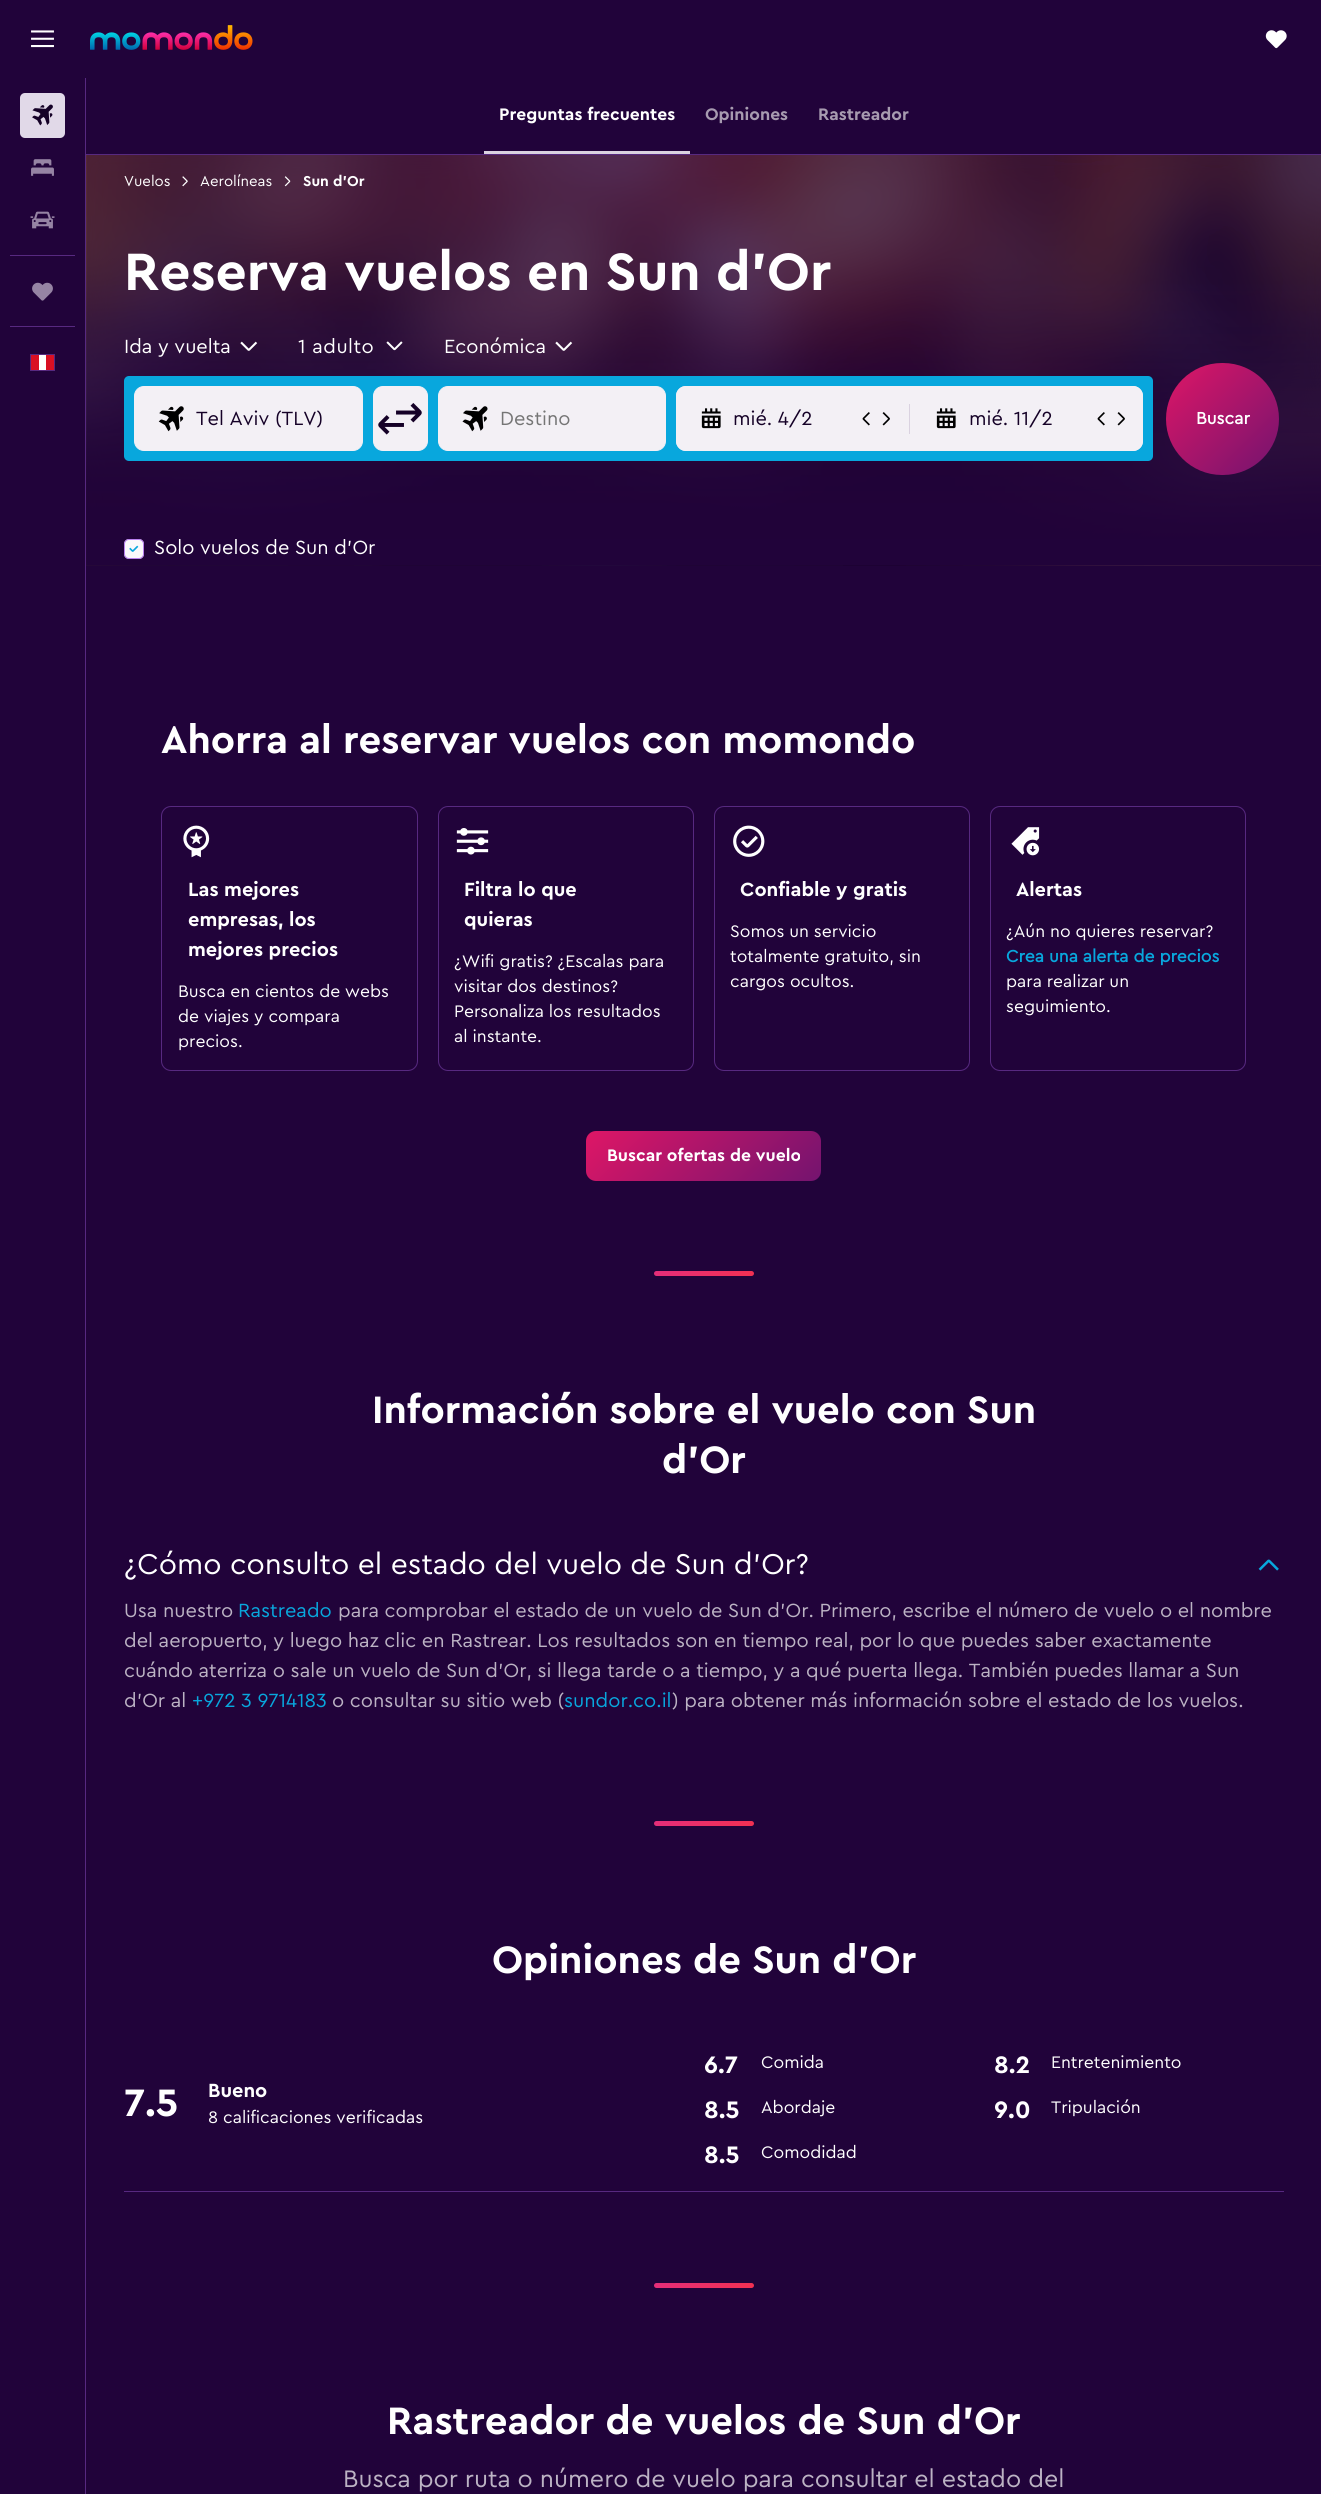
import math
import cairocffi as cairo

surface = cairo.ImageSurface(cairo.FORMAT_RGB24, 1321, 2494)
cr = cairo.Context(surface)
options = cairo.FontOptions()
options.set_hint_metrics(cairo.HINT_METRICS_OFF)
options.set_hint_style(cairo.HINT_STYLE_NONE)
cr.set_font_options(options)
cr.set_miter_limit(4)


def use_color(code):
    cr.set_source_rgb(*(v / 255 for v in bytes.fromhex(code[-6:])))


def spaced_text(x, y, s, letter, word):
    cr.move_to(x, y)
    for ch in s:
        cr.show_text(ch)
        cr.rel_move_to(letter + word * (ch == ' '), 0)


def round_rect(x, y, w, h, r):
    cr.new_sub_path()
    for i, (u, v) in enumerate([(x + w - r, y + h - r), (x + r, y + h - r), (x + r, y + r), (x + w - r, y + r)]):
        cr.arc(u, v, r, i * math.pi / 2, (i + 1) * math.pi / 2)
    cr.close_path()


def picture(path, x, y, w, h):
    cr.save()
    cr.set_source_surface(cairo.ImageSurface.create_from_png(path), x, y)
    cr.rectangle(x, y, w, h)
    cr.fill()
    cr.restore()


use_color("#21033a")
cr.paint()
picture("img1.png", 31, 30, 23, 18)
picture("img2.png", 90, 25, 163, 25)
picture("img3.png", 1265, 30, 22, 19)
use_color("#572980")
cr.rectangle(85, 78, 1, 2416)
cr.fill()
use_color("#e1d9e8")
round_rect(20, 93, 45, 45, 5)
cr.fill()
picture("img4.png", 32, 104, 21, 22)
picture("img5.png", 31, 159, 23, 17)
picture("img6.png", 30, 211, 25, 18)
use_color("#572980")
cr.rectangle(10, 255, 65, 1)
cr.fill()
picture("img7.png", 32, 282, 21, 19)
cr.rectangle(10, 326, 65, 1)
cr.fill()
cr.rectangle(30.5, 354.5, 24, 16)
cr.set_line_width(1)
cr.stroke()
use_color("#d91023")
cr.rectangle(31, 355, 23, 15)
cr.fill()
use_color("#ffffff")
cr.rectangle(39, 355, 7, 15)
cr.fill()
use_color("#572980")
cr.rectangle(86, 154, 1235, 1)
cr.fill()
use_color("#dad2e0")
cr.rectangle(484, 151, 206, 3)
cr.fill()
cr.select_font_face("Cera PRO", cairo.FONT_SLANT_NORMAL, cairo.FONT_WEIGHT_BOLD)
cr.set_font_size(17.5)
use_color("#ffffff")
cr.move_to(499, 120)
cr.show_text("Preguntas frecuentes")
use_color("#a79bb0")
cr.move_to(705, 120)
cr.show_text("Opiniones")
cr.move_to(818, 120)
cr.show_text("Rastreador")
picture("img8.png", 86, 155, 1235, 411)
cr.select_font_face("Cera PRO")
cr.set_font_size(15)
use_color("#ffffff")
cr.move_to(124, 186)
cr.show_text("Vuelos")
picture("img9.png", 182, 176, 6, 11)
cr.move_to(200, 186)
cr.show_text("Aerolíneas")
picture("img10.png", 284, 176, 7, 11)
cr.select_font_face("Cera PRO", cairo.FONT_SLANT_NORMAL, cairo.FONT_WEIGHT_BOLD)
cr.move_to(303, 186)
cr.show_text("Sun d'Or")
cr.set_font_size(55)
cr.move_to(124, 290)
cr.show_text("Reserva vuelos en Sun d'Or")
cr.select_font_face("Cera PRO")
cr.set_font_size(20)
cr.move_to(124, 353)
cr.show_text("Ida y vuelta")
picture("img11.png", 240, 341, 18, 10)
spaced_text(298, 353, "1 adulto", 0.5, 0)
picture("img12.png", 386, 341, 17, 10)
cr.move_to(444, 353)
cr.show_text("Económica")
picture("img13.png", 555, 341, 18, 10)
use_color("#08a7dd")
round_rect(124, 376, 1029, 85, 5)
cr.fill()
use_color("#f3f0f5")
round_rect(134.5, 386.5, 228, 64, 9.5)
cr.fill_preserve()
cr.stroke()
picture("img14.png", 158, 406, 26, 26)
use_color("#150127")
cr.move_to(196, 425)
cr.show_text("Tel Aviv (TLV)")
use_color("#f3f0f5")
round_rect(373.5, 386.5, 54, 64, 9.5)
cr.fill_preserve()
cr.stroke()
picture("img15.png", 378, 403, 44, 32)
round_rect(438.5, 386.5, 227, 64, 9.5)
cr.fill_preserve()
cr.stroke()
picture("img16.png", 462, 406, 26, 26)
use_color("#757575")
cr.move_to(500, 425)
cr.show_text("Destino")
use_color("#f3f0f5")
round_rect(676, 386, 467, 65, 10)
cr.fill()
round_rect(676, 386, 232, 65, 10)
cr.fill()
picture("img17.png", 701, 408, 20, 21)
use_color("#150127")
cr.move_to(733, 425)
cr.show_text("mié. 4/2")
picture("img18.png", 862, 412, 8, 14)
picture("img19.png", 882, 412, 8, 14)
use_color("#dad2e0")
cr.rectangle(909, 404, 1, 30)
cr.fill()
use_color("#f3f0f5")
round_rect(911, 386, 232, 65, 10)
cr.fill()
picture("img17.png", 936, 408, 20, 21)
use_color("#150127")
cr.move_to(969, 425)
cr.show_text("mié. 11/2")
picture("img18.png", 1097, 412, 8, 14)
picture("img19.png", 1117, 412, 8, 14)
gradient = cairo.LinearGradient(1166, 363, 1279, 475)
gradient.add_color_stop_rgba(0, 0.871, 0.086, 0.4, 1)
gradient.add_color_stop_rgba(1, 0.451, 0.078, 0.435, 1)
cr.set_source(gradient)
round_rect(1166, 363, 113, 112, 56)
cr.fill()
cr.select_font_face("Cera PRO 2", cairo.FONT_SLANT_NORMAL, cairo.FONT_WEIGHT_BOLD)
cr.set_font_size(17.5)
use_color("#ffffff")
cr.move_to(1196, 424)
cr.show_text("Buscar")
use_color("#faf9fb")
round_rect(124, 539, 20, 20, 5)
cr.fill()
picture("img20.png", 129, 545, 10, 7)
round_rect(124.5, 539.5, 19, 19, 4.5)
cr.set_source_rgba(0.655, 0.384, 0.918, 0.8)
cr.stroke()
cr.select_font_face("Cera PRO")
cr.set_font_size(20)
use_color("#ffffff")
cr.move_to(154, 554)
cr.show_text("Solo vuelos de Sun d'Or")
cr.select_font_face("Cera PRO", cairo.FONT_SLANT_NORMAL, cairo.FONT_WEIGHT_BOLD)
cr.set_font_size(40)
cr.move_to(161, 753)
cr.show_text("Ahorra al reservar vuelos con momondo")
round_rect(161.5, 806.5, 256, 264, 9.5)
use_color("#572980")
cr.stroke()
picture("img21.png", 183, 825, 27, 33)
cr.set_font_size(20)
use_color("#ffffff")
cr.move_to(188, 896)
cr.show_text("Las mejores")
cr.move_to(188, 926)
cr.show_text("empresas, los")
cr.move_to(188, 956)
cr.show_text("mejores precios")
cr.select_font_face("Cera PRO")
cr.set_font_size(17.5)
cr.move_to(178, 997)
cr.show_text("Busca en cientos de webs")
cr.move_to(178, 1022)
cr.show_text("de viajes y compara")
cr.move_to(178, 1047)
cr.show_text("precios.")
round_rect(438.5, 806.5, 255, 264, 9.5)
use_color("#572980")
cr.stroke()
picture("img22.png", 456, 828, 33, 27)
cr.select_font_face("Cera PRO", cairo.FONT_SLANT_NORMAL, cairo.FONT_WEIGHT_BOLD)
cr.set_font_size(20)
use_color("#ffffff")
cr.move_to(464, 896)
cr.show_text("Filtra lo que")
cr.move_to(464, 926)
cr.show_text("quieras")
cr.select_font_face("Cera PRO")
cr.set_font_size(17.5)
cr.move_to(454, 967)
cr.show_text("¿Wifi gratis? ¿Escalas para")
cr.move_to(454, 992)
cr.show_text("visitar dos destinos?")
cr.move_to(454, 1017)
cr.show_text("Personaliza los resultados")
cr.move_to(454, 1042)
cr.show_text("al instante.")
round_rect(714.5, 806.5, 255, 264, 9.5)
use_color("#572980")
cr.stroke()
picture("img23.png", 733, 825, 32, 32)
cr.select_font_face("Cera PRO", cairo.FONT_SLANT_NORMAL, cairo.FONT_WEIGHT_BOLD)
cr.set_font_size(20)
use_color("#ffffff")
cr.move_to(740, 896)
cr.show_text("Confiable y gratis")
cr.select_font_face("Cera PRO")
cr.set_font_size(17.5)
cr.move_to(730, 937)
cr.show_text("Somos un servicio")
cr.move_to(730, 962)
cr.show_text("totalmente gratuito, sin")
cr.move_to(730, 987)
cr.show_text("cargos ocultos.")
round_rect(990.5, 806.5, 255, 264, 9.5)
use_color("#572980")
cr.stroke()
picture("img24.png", 1011, 827, 29, 29)
cr.select_font_face("Cera PRO", cairo.FONT_SLANT_NORMAL, cairo.FONT_WEIGHT_BOLD)
cr.set_font_size(20)
use_color("#ffffff")
cr.move_to(1016, 896)
cr.show_text("Alertas")
cr.select_font_face("Cera PRO")
cr.set_font_size(17.5)
cr.move_to(1006, 937)
cr.show_text("¿Aún no quieres reservar?")
cr.select_font_face("Cera PRO 2", cairo.FONT_SLANT_NORMAL, cairo.FONT_WEIGHT_BOLD)
use_color("#08a7dd")
cr.move_to(1006, 962)
cr.show_text("Crea una alerta de precios")
cr.select_font_face("Cera PRO")
use_color("#ffffff")
cr.move_to(1006, 987)
cr.show_text("para realizar un")
cr.move_to(1006, 1012)
cr.show_text("seguimiento.")
gradient = cairo.LinearGradient(633, 1085, 775, 1228)
gradient.add_color_stop_rgba(0, 0.871, 0.086, 0.4, 1)
gradient.add_color_stop_rgba(1, 0.451, 0.078, 0.435, 1)
cr.set_source(gradient)
round_rect(586, 1131, 235, 50, 10)
cr.fill()
cr.select_font_face("Cera PRO", cairo.FONT_SLANT_NORMAL, cairo.FONT_WEIGHT_BOLD)
use_color("#ffffff")
cr.move_to(607, 1161)
cr.show_text("Buscar ofertas de vuelo")
gradient = cairo.LinearGradient(678, 1248, 730, 1300)
gradient.add_color_stop_rgba(0, 0.898, 0.18, 0.478, 1)
gradient.add_color_stop_rgba(1, 0.949, 0.188, 0.318, 1)
cr.set_source(gradient)
round_rect(654, 1271, 100, 5, 2.5)
cr.fill()
cr.set_font_size(40)
use_color("#ffffff")
cr.move_to(372, 1423)
cr.show_text("Información sobre el vuelo con Sun")
cr.move_to(662, 1473)
cr.show_text("d'Or")
cr.select_font_face("Cera PRO")
cr.set_font_size(30)
cr.move_to(124, 1574)
cr.show_text("¿Cómo consulto el estado del vuelo de Sun d'Or?")
picture("img25.png", 1258, 1559, 21, 12)
cr.set_font_size(20)
use_color("#bcb3c4")
cr.move_to(124, 1617)
cr.show_text("Usa nuestro")
use_color("#08a7dd")
cr.move_to(238, 1617)
cr.show_text("Rastreado")
use_color("#bcb3c4")
cr.move_to(338, 1617)
cr.show_text("para comprobar el estado de un vuelo de Sun d'Or. Primero, escribe el número de vuelo o el nombre")
cr.move_to(124, 1647)
cr.show_text("del aeropuerto, y luego haz clic en Rastrear. Los resultados son en tiempo real, por lo que puedes saber exactamente")
cr.move_to(124, 1677)
cr.show_text("cuándo aterriza o sale un vuelo de Sun d'Or, si llega tarde o a tiempo, y a qué puerta llega. También puedes llamar a Sun")
cr.move_to(124, 1707)
cr.show_text("d'Or al")
use_color("#08a7dd")
cr.move_to(192, 1707)
cr.show_text("+972 3 9714183")
use_color("#bcb3c4")
cr.move_to(332, 1707)
cr.show_text("o consultar su sitio web (")
use_color("#08a7dd")
cr.move_to(564, 1707)
cr.show_text("sundor.co.il")
use_color("#bcb3c4")
cr.move_to(672, 1707)
cr.show_text(") para obtener más información sobre el estado de los vuelos.")
gradient = cairo.LinearGradient(678, 1798, 730, 1850)
gradient.add_color_stop_rgba(0, 0.898, 0.18, 0.478, 1)
gradient.add_color_stop_rgba(1, 0.949, 0.188, 0.318, 1)
cr.set_source(gradient)
round_rect(654, 1821, 100, 5, 2.5)
cr.fill()
cr.select_font_face("Cera PRO", cairo.FONT_SLANT_NORMAL, cairo.FONT_WEIGHT_BOLD)
cr.set_font_size(40)
use_color("#ffffff")
cr.move_to(492, 1973)
cr.show_text("Opiniones de Sun d'Or")
cr.move_to(124, 2116)
cr.show_text("7.5")
cr.set_font_size(20)
cr.move_to(208, 2097)
cr.show_text("Bueno")
cr.select_font_face("Cera PRO")
cr.set_font_size(17.5)
cr.move_to(208, 2123)
cr.show_text("8 calificaciones verificadas")
cr.select_font_face("Cera PRO", cairo.FONT_SLANT_NORMAL, cairo.FONT_WEIGHT_BOLD)
cr.set_font_size(25)
cr.move_to(704, 2073)
cr.show_text("6.7")
cr.select_font_face("Cera PRO")
cr.set_font_size(17.5)
cr.move_to(761, 2068)
cr.show_text("Comida")
cr.select_font_face("Cera PRO", cairo.FONT_SLANT_NORMAL, cairo.FONT_WEIGHT_BOLD)
cr.set_font_size(25)
cr.move_to(994, 2073)
cr.show_text("8.2")
cr.select_font_face("Cera PRO")
cr.set_font_size(17.5)
cr.move_to(1051, 2068)
cr.show_text("Entretenimiento")
cr.select_font_face("Cera PRO", cairo.FONT_SLANT_NORMAL, cairo.FONT_WEIGHT_BOLD)
cr.set_font_size(25)
cr.move_to(704, 2118)
cr.show_text("8.5")
cr.select_font_face("Cera PRO")
cr.set_font_size(17.5)
cr.move_to(761, 2113)
cr.show_text("Abordaje")
cr.select_font_face("Cera PRO", cairo.FONT_SLANT_NORMAL, cairo.FONT_WEIGHT_BOLD)
cr.set_font_size(25)
cr.move_to(994, 2118)
cr.show_text("9.0")
cr.select_font_face("Cera PRO")
cr.set_font_size(17.5)
cr.move_to(1051, 2113)
cr.show_text("Tripulación")
cr.select_font_face("Cera PRO", cairo.FONT_SLANT_NORMAL, cairo.FONT_WEIGHT_BOLD)
cr.set_font_size(25)
cr.move_to(704, 2163)
cr.show_text("8.5")
cr.select_font_face("Cera PRO")
cr.set_font_size(17.5)
cr.move_to(761, 2158)
cr.show_text("Comodidad")
use_color("#572980")
cr.rectangle(124, 2191, 1160, 1)
cr.fill()
gradient = cairo.LinearGradient(678, 2259, 730, 2311)
gradient.add_color_stop_rgba(0, 0.898, 0.18, 0.478, 1)
gradient.add_color_stop_rgba(1, 0.949, 0.188, 0.318, 1)
cr.set_source(gradient)
round_rect(654, 2283, 100, 5, 2.5)
cr.fill()
cr.select_font_face("Cera PRO", cairo.FONT_SLANT_NORMAL, cairo.FONT_WEIGHT_BOLD)
cr.set_font_size(40)
use_color("#ffffff")
cr.move_to(387, 2434)
cr.show_text("Rastreador de vuelos de Sun d'Or")
cr.select_font_face("Cera PRO")
cr.set_font_size(25)
use_color("#bcb3c4")
cr.move_to(343, 2487)
cr.show_text("Busca por ruta o número de vuelo para consultar el estado del")
surface.write_to_png("result.png")
